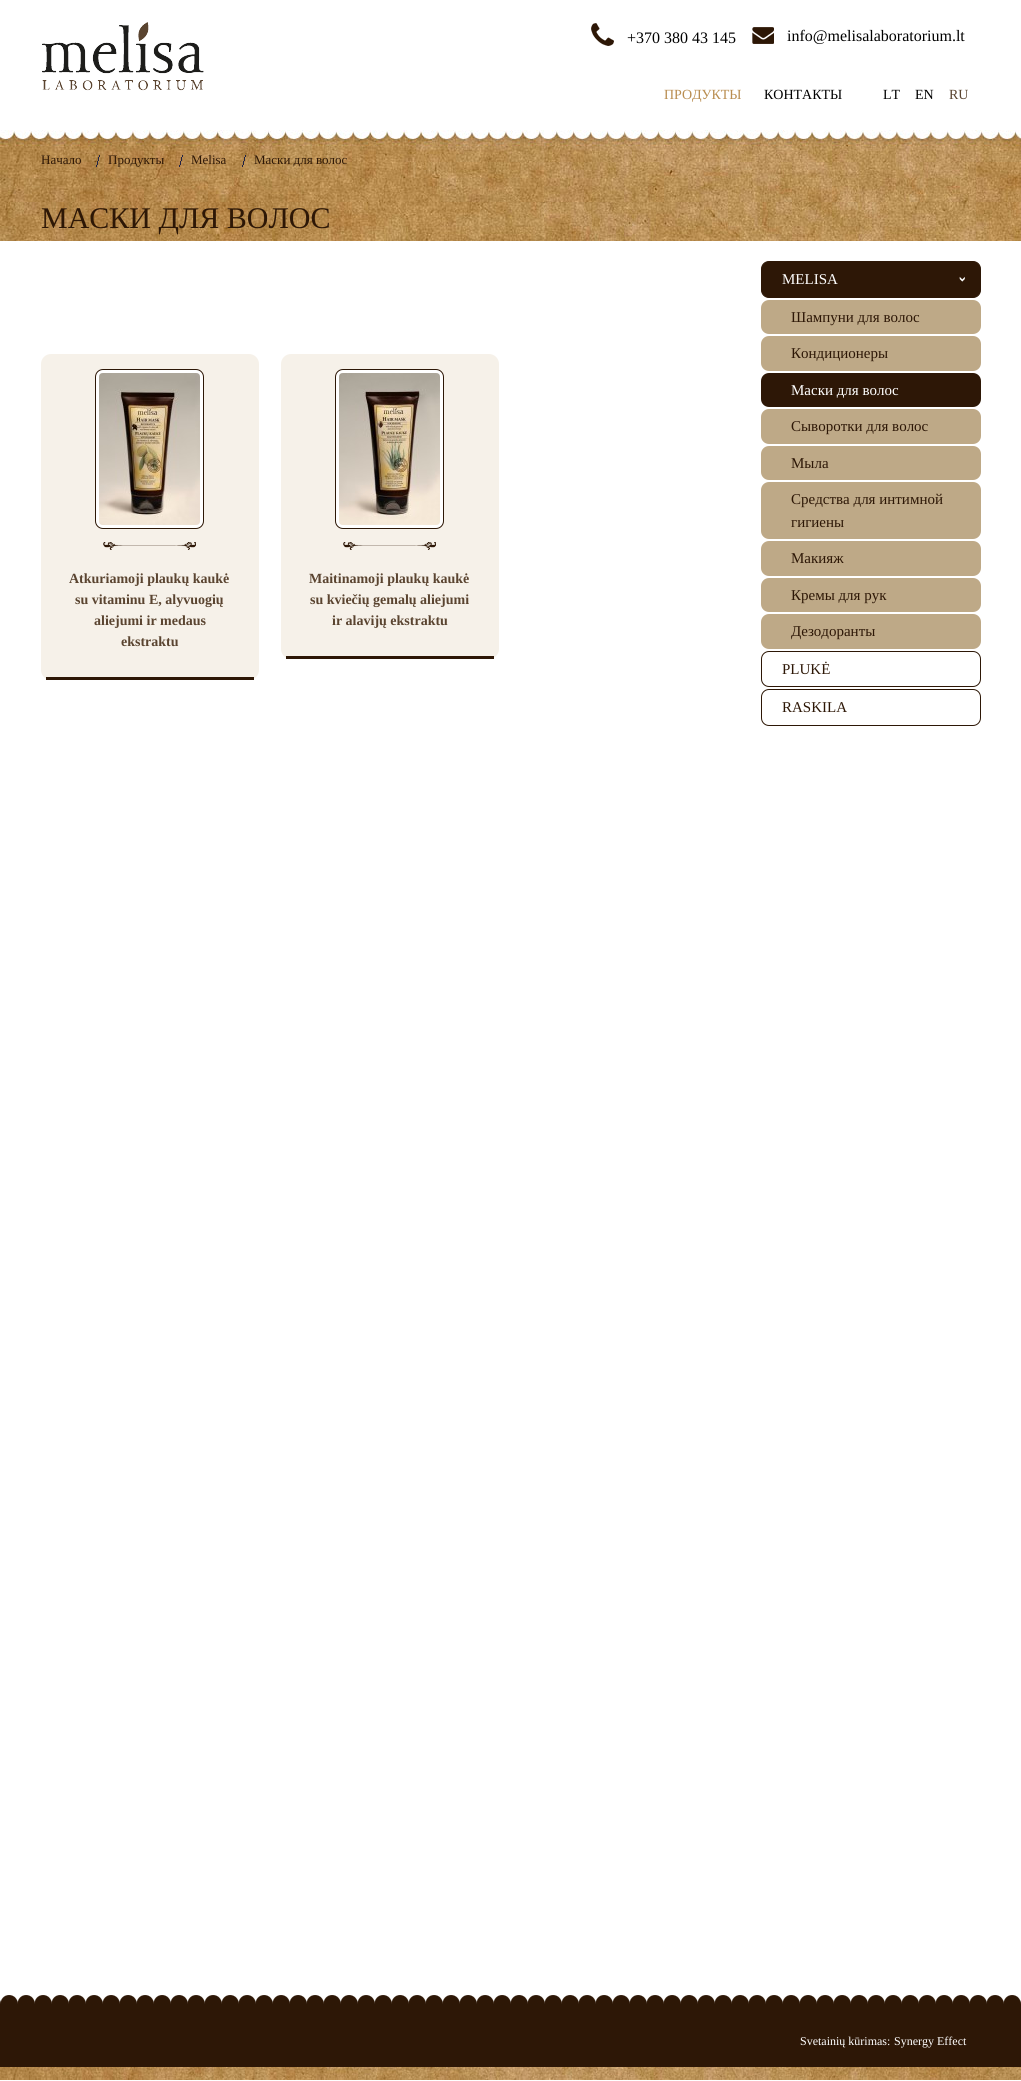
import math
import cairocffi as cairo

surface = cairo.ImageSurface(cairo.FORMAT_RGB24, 1021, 2081)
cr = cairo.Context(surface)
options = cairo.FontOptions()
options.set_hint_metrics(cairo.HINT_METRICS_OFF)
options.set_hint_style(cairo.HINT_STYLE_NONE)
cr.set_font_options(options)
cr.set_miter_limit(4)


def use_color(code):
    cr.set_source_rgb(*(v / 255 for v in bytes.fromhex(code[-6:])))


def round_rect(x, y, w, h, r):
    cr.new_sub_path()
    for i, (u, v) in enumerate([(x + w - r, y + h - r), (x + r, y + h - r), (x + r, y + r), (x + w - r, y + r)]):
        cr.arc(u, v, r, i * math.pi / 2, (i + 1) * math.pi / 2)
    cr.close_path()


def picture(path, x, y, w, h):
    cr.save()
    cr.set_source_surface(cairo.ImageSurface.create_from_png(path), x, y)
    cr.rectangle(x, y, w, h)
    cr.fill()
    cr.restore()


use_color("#ffffff")
cr.paint()
picture("img1.png", 42, 22, 162, 69)
picture("img2.png", 591, 23, 23, 23)
cr.select_font_face("Liberation Serif")
cr.set_font_size(16)
use_color("#000000")
cr.move_to(627, 43)
cr.show_text("+370 380 43 145")
picture("img3.png", 752, 27, 22, 17)
cr.move_to(787, 41)
cr.show_text("info@melisalaboratorium.lt")
cr.set_font_size(14)
use_color("#b98d50")
cr.move_to(664, 99)
cr.show_text("ПРОДУКТЫ")
use_color("#000000")
cr.move_to(764, 99)
cr.show_text("КОНТАКТЫ")
cr.move_to(883, 99)
cr.show_text("LT")
cr.move_to(915, 99)
cr.show_text("EN")
use_color("#5a4430")
cr.move_to(949, 99)
cr.show_text("RU")
picture("img4.png", 0, 130, 1021, 111)
cr.set_font_size(13)
use_color("#2d1706")
cr.move_to(41, 164)
cr.show_text("Hачало")
picture("img5.png", 96, 155, 4, 12)
cr.move_to(108, 164)
cr.show_text("Продукты")
picture("img6.png", 179, 155, 4, 12)
cr.move_to(191, 164)
cr.show_text("Melisa")
picture("img7.png", 242, 155, 4, 12)
cr.move_to(254, 164)
cr.show_text("Маски для волос")
cr.set_font_size(30)
cr.move_to(41, 228)
cr.show_text("МАСКИ ДЛЯ ВОЛОС")
use_color("#f6f1e9")
round_rect(41, 354, 218, 326, 10)
cr.fill()
use_color("#2d1706")
cr.rectangle(46, 677, 208, 3)
cr.fill()
use_color("#ffffff")
round_rect(95.5, 369.5, 108, 159, 7.5)
cr.fill_preserve()
use_color("#2d1706")
cr.set_line_width(1)
cr.stroke()
picture("img8.png", 99, 373, 101, 152)
picture("img9.png", 103, 542, 93, 8)
cr.select_font_face("Liberation Serif", cairo.FONT_SLANT_NORMAL, cairo.FONT_WEIGHT_BOLD)
cr.set_font_size(14)
use_color("#5a4430")
cr.move_to(69, 583)
cr.show_text("Atkuriamoji plaukų kaukė")
cr.move_to(75, 604)
cr.show_text("su vitaminu E, alyvuogių")
cr.move_to(94, 625)
cr.show_text("aliejumi ir medaus")
cr.move_to(121, 646)
cr.show_text("ekstraktu")
use_color("#f6f1e9")
round_rect(281, 354, 218, 305, 10)
cr.fill()
use_color("#2d1706")
cr.rectangle(286, 656, 208, 3)
cr.fill()
use_color("#ffffff")
round_rect(335.5, 369.5, 108, 159, 7.5)
cr.fill_preserve()
use_color("#2d1706")
cr.stroke()
picture("img10.png", 339, 373, 101, 152)
picture("img9.png", 343, 542, 93, 8)
use_color("#5a4430")
cr.move_to(309, 583)
cr.show_text("Maitinamoji plaukų kaukė")
cr.move_to(310, 604)
cr.show_text("su kviečių gemalų aliejumi")
cr.move_to(332, 625)
cr.show_text("ir alavijų ekstraktu")
use_color("#2d1706")
round_rect(761.5, 261.5, 219, 36, 7.5)
cr.fill_preserve()
cr.stroke()
cr.select_font_face("Liberation Serif")
cr.set_font_size(15)
use_color("#ffffff")
cr.move_to(782, 284)
cr.show_text("MELISA")
picture("img11.png", 959, 276, 6, 6)
use_color("#bea987")
round_rect(761, 300, 220, 34, 8)
cr.fill()
use_color("#2d1706")
cr.move_to(791, 322)
cr.show_text("Шампуни для волос")
use_color("#bea987")
round_rect(761, 336, 220, 35, 8)
cr.fill()
use_color("#2d1706")
cr.move_to(791, 358)
cr.show_text("Кондиционеры")
round_rect(761, 373, 220, 34, 8)
cr.fill()
use_color("#ffffff")
cr.move_to(791, 395)
cr.show_text("Маски для волос")
use_color("#bea987")
round_rect(761, 409, 220, 35, 8)
cr.fill()
use_color("#2d1706")
cr.move_to(791, 431)
cr.show_text("Cыворотки для волос")
use_color("#bea987")
round_rect(761, 446, 220, 34, 8)
cr.fill()
use_color("#2d1706")
cr.move_to(791, 468)
cr.show_text("Mылa")
use_color("#bea987")
round_rect(761, 482, 220, 57, 8)
cr.fill()
use_color("#2d1706")
cr.move_to(791, 504)
cr.show_text("Средства для интимной")
cr.move_to(791, 527)
cr.show_text("гигиены")
use_color("#bea987")
round_rect(761, 541, 220, 35, 8)
cr.fill()
use_color("#2d1706")
cr.move_to(791, 563)
cr.show_text("Mакияж")
use_color("#bea987")
round_rect(761, 578, 220, 34, 8)
cr.fill()
use_color("#2d1706")
cr.move_to(791, 600)
cr.show_text("Кремы для рук")
use_color("#bea987")
round_rect(761, 614, 220, 35, 8)
cr.fill()
use_color("#2d1706")
cr.move_to(791, 636)
cr.show_text("Дезодоранты")
round_rect(761.5, 651.5, 219, 35, 7.5)
cr.stroke()
cr.move_to(782, 674)
cr.show_text("PLUKĖ")
round_rect(761.5, 689.5, 219, 36, 7.5)
cr.stroke()
cr.move_to(782, 712)
cr.show_text("RASKILA")
picture("img12.png", 0, 1995, 1021, 72)
cr.set_font_size(12)
use_color("#ffffff")
cr.move_to(800, 2045)
cr.show_text("Svetainių kūrimas:")
cr.move_to(894, 2045)
cr.show_text("Synergy Effect")
picture("img13.png", 0, 2067, 1021, 13)
surface.write_to_png("result.png")
